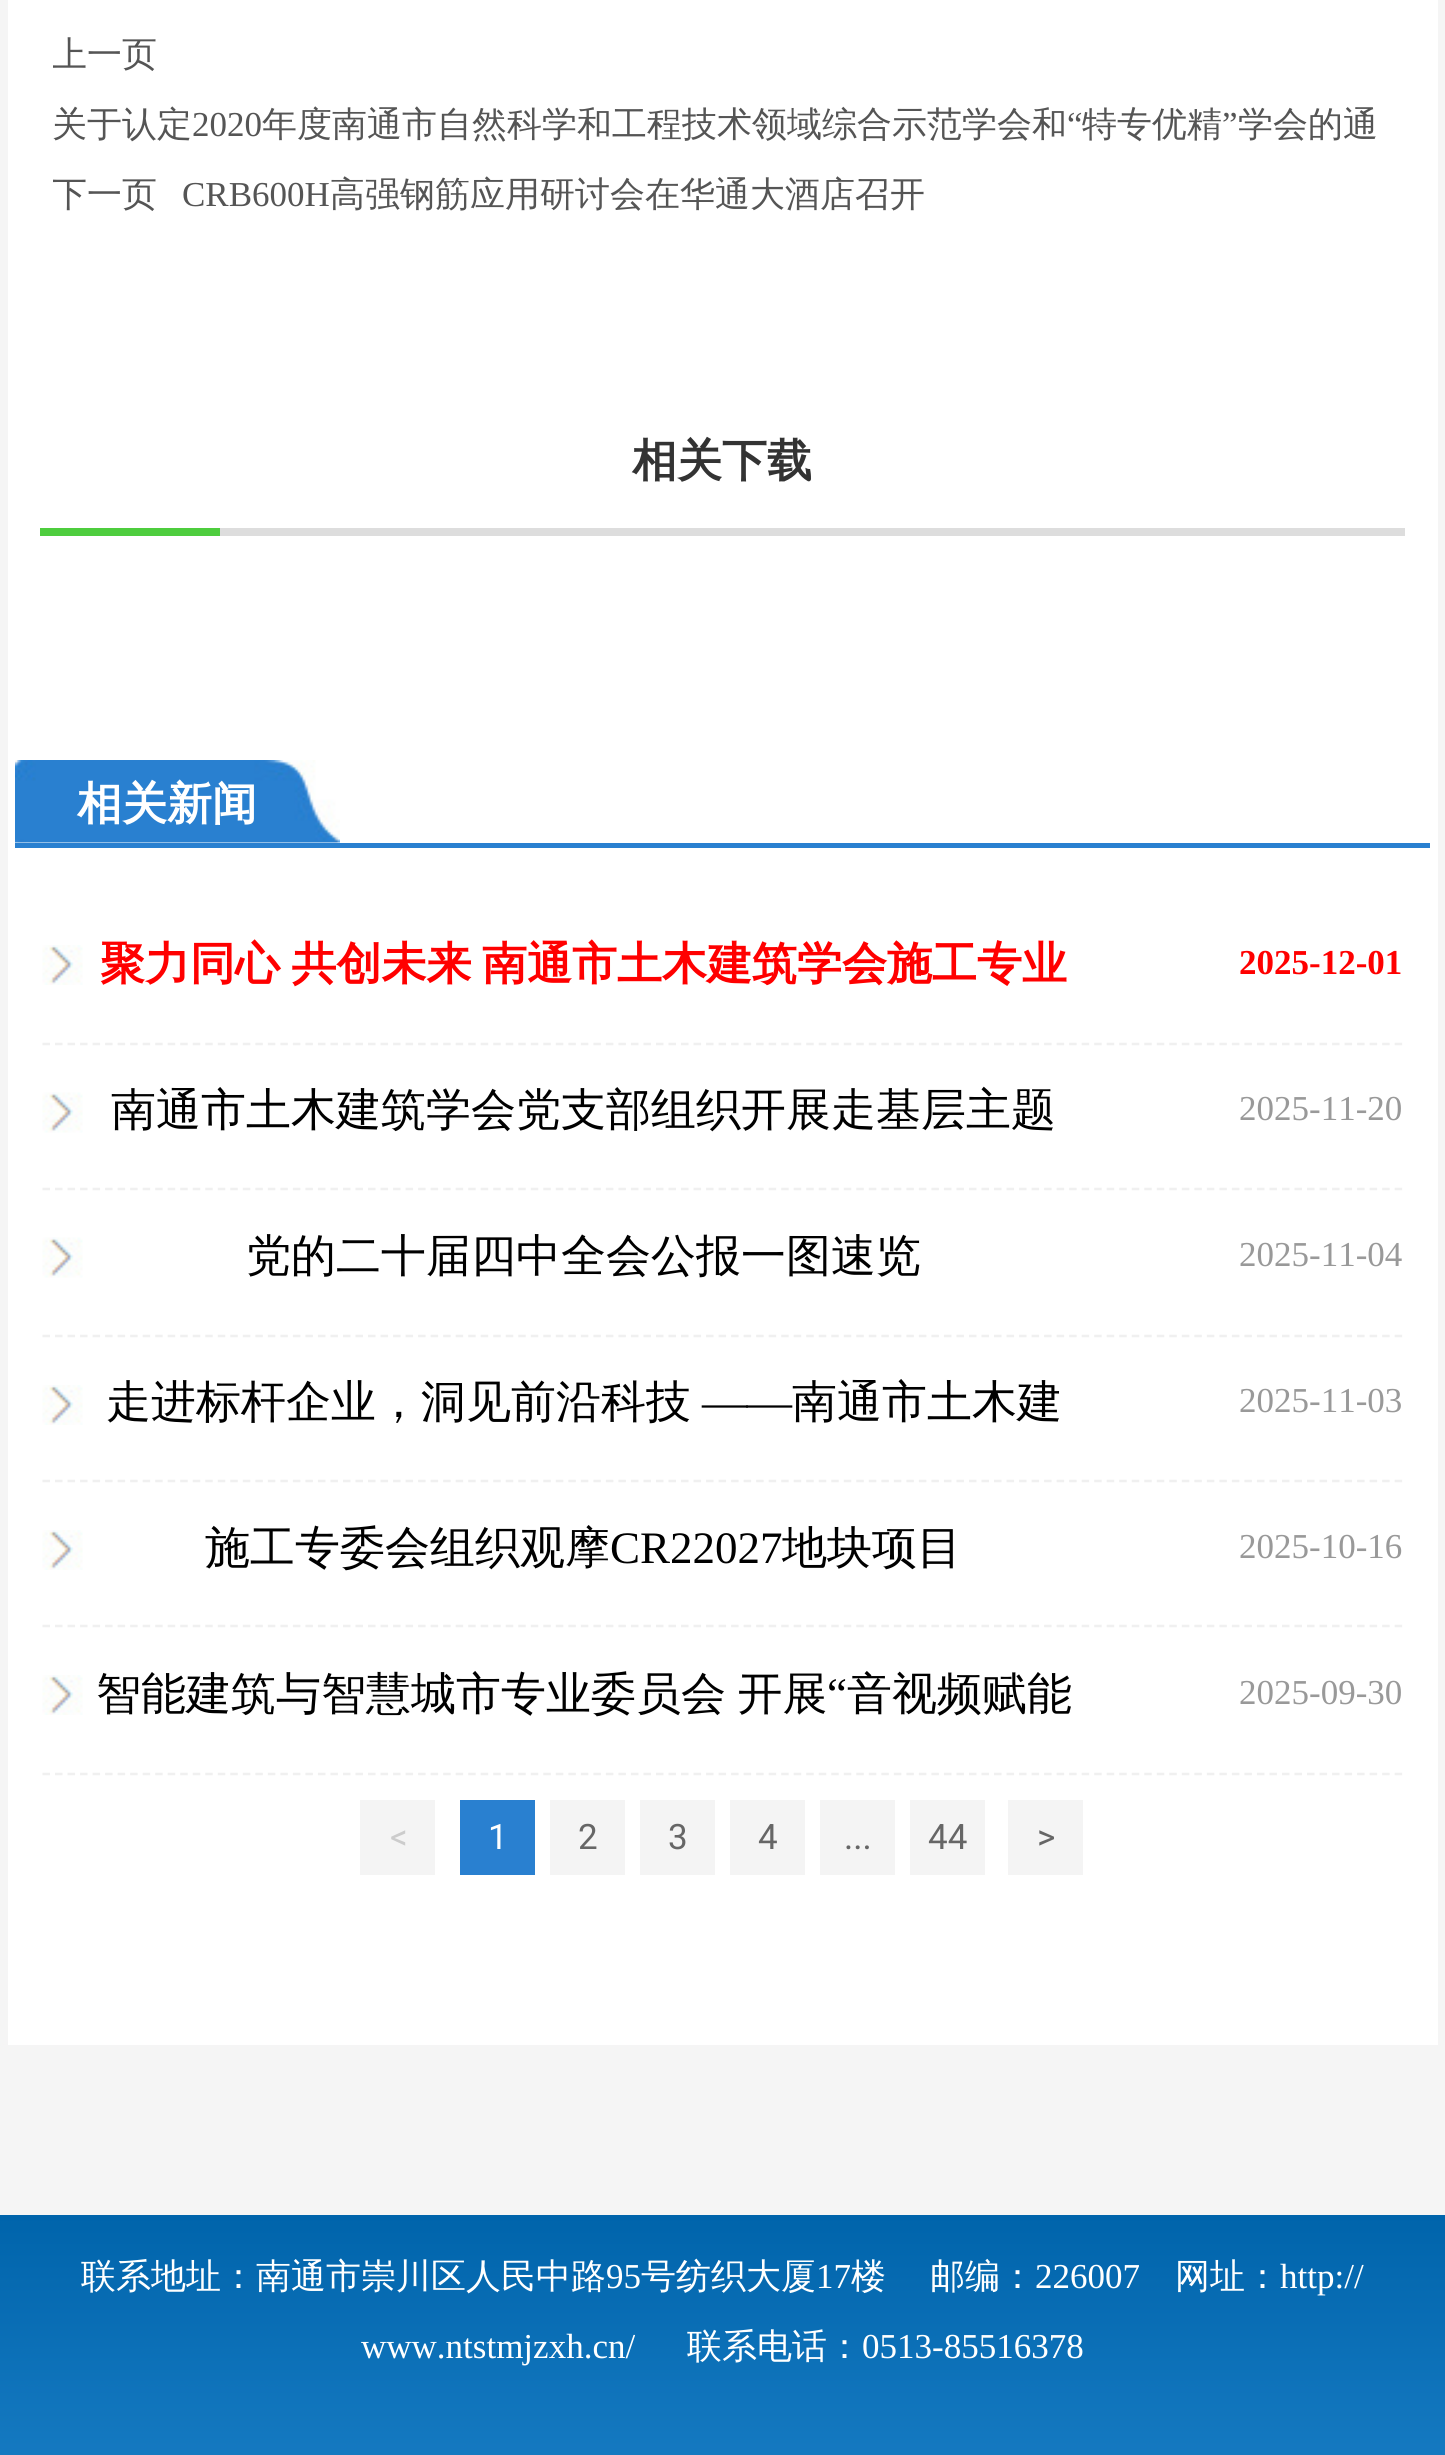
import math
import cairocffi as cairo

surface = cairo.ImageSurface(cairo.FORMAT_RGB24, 1445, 2455)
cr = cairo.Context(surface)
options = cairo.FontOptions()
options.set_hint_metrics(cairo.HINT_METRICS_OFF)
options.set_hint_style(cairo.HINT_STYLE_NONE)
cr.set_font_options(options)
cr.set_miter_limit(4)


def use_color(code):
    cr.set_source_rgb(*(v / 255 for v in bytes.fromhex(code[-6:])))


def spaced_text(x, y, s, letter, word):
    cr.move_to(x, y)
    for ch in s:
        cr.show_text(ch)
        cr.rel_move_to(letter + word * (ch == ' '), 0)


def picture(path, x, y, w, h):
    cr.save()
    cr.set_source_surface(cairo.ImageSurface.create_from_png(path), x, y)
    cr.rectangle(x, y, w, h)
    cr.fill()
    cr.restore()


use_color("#f5f5f5")
cr.paint()
use_color("#ffffff")
cr.rectangle(8, 0, 1430, 2045)
cr.fill()
cr.save()
cr.rectangle(53, 0, 1340, 305)
cr.clip()
cr.select_font_face("WenQuanYi Zen Hei Medium")
cr.set_font_size(35)
use_color("#555555")
cr.move_to(52, 66)
cr.show_text("上一页")
cr.restore()
cr.select_font_face("WenQuanYi Zen Hei Medium")
cr.set_font_size(35)
use_color("#555555")
cr.move_to(52, 136)
cr.show_text("关于认定")
cr.select_font_face("Liberation Serif")
cr.move_to(192, 136)
cr.show_text("2020")
cr.select_font_face("WenQuanYi Zen Hei Medium")
cr.move_to(262, 136)
cr.show_text("年度南通市自然科学和工程技术领域综合示范学会和")
cr.select_font_face("Liberation Serif")
cr.move_to(1067, 136)
cr.show_text("“")
cr.select_font_face("WenQuanYi Zen Hei Medium")
cr.move_to(1082, 136)
cr.show_text("特专优精")
cr.select_font_face("Liberation Serif")
cr.move_to(1222, 136)
cr.show_text("”")
cr.select_font_face("WenQuanYi Zen Hei Medium")
cr.move_to(1238, 136)
cr.show_text("学会的通")
cr.save()
cr.rectangle(53, 0, 1340, 305)
cr.clip()
cr.move_to(52, 206)
cr.show_text("下一页")
cr.restore()
cr.select_font_face("Liberation Serif")
cr.move_to(182, 206)
cr.show_text("CRB600H")
cr.select_font_face("WenQuanYi Zen Hei Medium")
cr.move_to(330, 206)
cr.show_text("高强钢筋应用研讨会在华通大酒店召开")
use_color("#dddddd")
cr.rectangle(220, 528, 1185, 8)
cr.fill()
cr.select_font_face("WenQuanYi Zen Hei", cairo.FONT_SLANT_NORMAL, cairo.FONT_WEIGHT_BOLD)
cr.set_font_size(45)
use_color("#333333")
cr.move_to(632, 476)
cr.show_text("相关下载")
use_color("#4ecd3e")
cr.rectangle(40, 528, 180, 8)
cr.fill()
use_color("#2980d0")
cr.rectangle(15, 843, 1415, 5)
cr.fill()
picture("img1.png", 15, 760, 325, 83)
use_color("#ffffff")
cr.move_to(77, 819)
cr.show_text("相关新闻")
picture("img2.png", 42, 945, 41, 40)
cr.new_path()
cr.move_to(42.5, 1044)
cr.line_to(1402.5, 1044)
use_color("#f0f0f0")
cr.set_line_width(2.5)
cr.set_dash([7.5, 5.02])
cr.stroke()
use_color("#ff0000")
spaced_text(100, 979, "聚力同心 共创未来", 0, -2)
cr.move_to(482, 979)
cr.show_text("南通市土木建筑学会施工专业")
cr.select_font_face("Liberation Serif", cairo.FONT_SLANT_NORMAL, cairo.FONT_WEIGHT_BOLD)
cr.set_font_size(35)
cr.move_to(1239, 974)
cr.show_text("2025-12-01")
picture("img3.png", 42, 1092, 41, 41)
cr.new_path()
cr.move_to(42.5, 1189)
cr.line_to(1402.5, 1189)
use_color("#f0f0f0")
cr.stroke()
cr.select_font_face("WenQuanYi Zen Hei Medium")
cr.set_font_size(45)
use_color("#000000")
cr.move_to(111, 1125)
cr.show_text("南通市土木建筑学会党支部组织开展走基层主题")
cr.select_font_face("Liberation Serif")
cr.set_font_size(35)
use_color("#999999")
cr.move_to(1239, 1120)
cr.show_text("2025-11-20")
picture("img3.png", 42, 1237, 41, 41)
cr.new_path()
cr.move_to(42.5, 1336)
cr.line_to(1402.5, 1336)
use_color("#f0f0f0")
cr.stroke()
cr.select_font_face("WenQuanYi Zen Hei Medium")
cr.set_font_size(45)
use_color("#000000")
cr.move_to(246, 1271)
cr.show_text("党的二十届四中全会公报一图速览")
cr.select_font_face("Liberation Serif")
cr.set_font_size(35)
use_color("#999999")
cr.move_to(1239, 1266)
cr.show_text("2025-11-04")
picture("img2.png", 42, 1385, 41, 40)
cr.new_path()
cr.move_to(42.5, 1481)
cr.line_to(1402.5, 1481)
use_color("#f0f0f0")
cr.stroke()
cr.select_font_face("WenQuanYi Zen Hei Medium")
cr.set_font_size(45)
use_color("#000000")
cr.move_to(106, 1417)
cr.show_text("走进标杆企业，洞见前沿科技")
cr.select_font_face("Liberation Serif")
cr.move_to(702, 1417)
cr.show_text("——")
cr.select_font_face("WenQuanYi Zen Hei Medium")
cr.move_to(792, 1417)
cr.show_text("南通市土木建")
cr.select_font_face("Liberation Serif")
cr.set_font_size(35)
use_color("#999999")
cr.move_to(1239, 1412)
cr.show_text("2025-11-03")
picture("img2.png", 42, 1530, 41, 40)
cr.new_path()
cr.move_to(42.5, 1626)
cr.line_to(1402.5, 1626)
use_color("#f0f0f0")
cr.stroke()
cr.select_font_face("WenQuanYi Zen Hei Medium")
cr.set_font_size(45)
use_color("#000000")
cr.move_to(205, 1563)
cr.show_text("施工专委会组织观摩")
cr.select_font_face("Liberation Serif")
cr.move_to(610, 1563)
cr.show_text("CR22027")
cr.select_font_face("WenQuanYi Zen Hei Medium")
cr.move_to(782, 1563)
cr.show_text("地块项目")
cr.select_font_face("Liberation Serif")
cr.set_font_size(35)
use_color("#999999")
cr.move_to(1239, 1558)
cr.show_text("2025-10-16")
picture("img2.png", 42, 1675, 41, 40)
cr.new_path()
cr.move_to(42.5, 1774)
cr.line_to(1402.5, 1774)
use_color("#f0f0f0")
cr.stroke()
cr.select_font_face("WenQuanYi Zen Hei Medium")
cr.set_font_size(45)
use_color("#000000")
spaced_text(96, 1709, "智能建筑与智慧城市专业委员会 开展", 0, -2)
cr.select_font_face("Liberation Serif")
cr.move_to(827, 1709)
cr.show_text("“")
cr.select_font_face("WenQuanYi Zen Hei Medium")
cr.move_to(847, 1709)
cr.show_text("音视频赋能")
cr.select_font_face("Liberation Serif")
cr.set_font_size(35)
use_color("#999999")
cr.move_to(1239, 1704)
cr.show_text("2025-09-30")
use_color("#f4f4f4")
cr.rectangle(360, 1800, 75, 75)
cr.fill()
cr.select_font_face("Roboto")
use_color("#cccccc")
cr.move_to(390, 1849)
cr.show_text("<")
use_color("#2980d0")
cr.rectangle(460, 1800, 75, 75)
cr.fill()
use_color("#ffffff")
cr.move_to(488, 1849)
cr.show_text("1")
use_color("#f4f4f4")
cr.rectangle(550, 1800, 75, 75)
cr.fill()
use_color("#666666")
cr.move_to(578, 1849)
cr.show_text("2")
use_color("#f4f4f4")
cr.rectangle(640, 1800, 75, 75)
cr.fill()
use_color("#666666")
cr.move_to(668, 1849)
cr.show_text("3")
use_color("#f4f4f4")
cr.rectangle(730, 1800, 75, 75)
cr.fill()
use_color("#666666")
cr.move_to(758, 1849)
cr.show_text("4")
use_color("#f4f4f4")
cr.rectangle(910, 1800, 75, 75)
cr.fill()
use_color("#666666")
cr.move_to(928, 1849)
cr.show_text("44")
use_color("#f4f4f4")
cr.rectangle(1008, 1800, 75, 75)
cr.fill()
use_color("#666666")
cr.move_to(1037, 1849)
cr.show_text(">")
use_color("#f4f4f4")
cr.rectangle(820, 1800, 75, 75)
cr.fill()
use_color("#666666")
cr.move_to(844, 1849)
cr.show_text("...")
gradient = cairo.LinearGradient(723, 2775, 723, 2215)
gradient.add_color_stop_rgba(0, 0.188, 0.584, 0.867, 1)
gradient.add_color_stop_rgba(1, 0, 0.392, 0.671, 1)
cr.set_source(gradient)
cr.rectangle(0, 2215, 1445, 240)
cr.fill()
cr.select_font_face("WenQuanYi Zen Hei Medium")
use_color("#ffffff")
cr.move_to(81, 2288)
cr.show_text("联系地址：南通市崇川区人民中路")
cr.select_font_face("Liberation Serif")
cr.move_to(606, 2288)
cr.show_text("95")
cr.select_font_face("WenQuanYi Zen Hei Medium")
cr.move_to(641, 2288)
cr.show_text("号纺织大厦")
cr.select_font_face("Liberation Serif")
cr.move_to(816, 2288)
cr.show_text("17")
cr.select_font_face("WenQuanYi Zen Hei Medium")
cr.move_to(851, 2288)
cr.show_text("楼")
cr.move_to(930, 2288)
cr.show_text("邮编：")
cr.select_font_face("Liberation Serif")
cr.move_to(1035, 2288)
cr.show_text("226007")
cr.select_font_face("WenQuanYi Zen Hei Medium")
cr.move_to(1175, 2288)
cr.show_text("网址：")
cr.select_font_face("Liberation Serif")
cr.move_to(1280, 2288)
cr.show_text("http://")
cr.move_to(361, 2358)
cr.show_text("www.ntstmjzxh.cn/")
cr.select_font_face("WenQuanYi Zen Hei Medium")
cr.move_to(687, 2358)
cr.show_text("联系电话：")
cr.select_font_face("Liberation Serif")
cr.move_to(862, 2358)
cr.show_text("0513-85516378")
surface.write_to_png("result.png")
